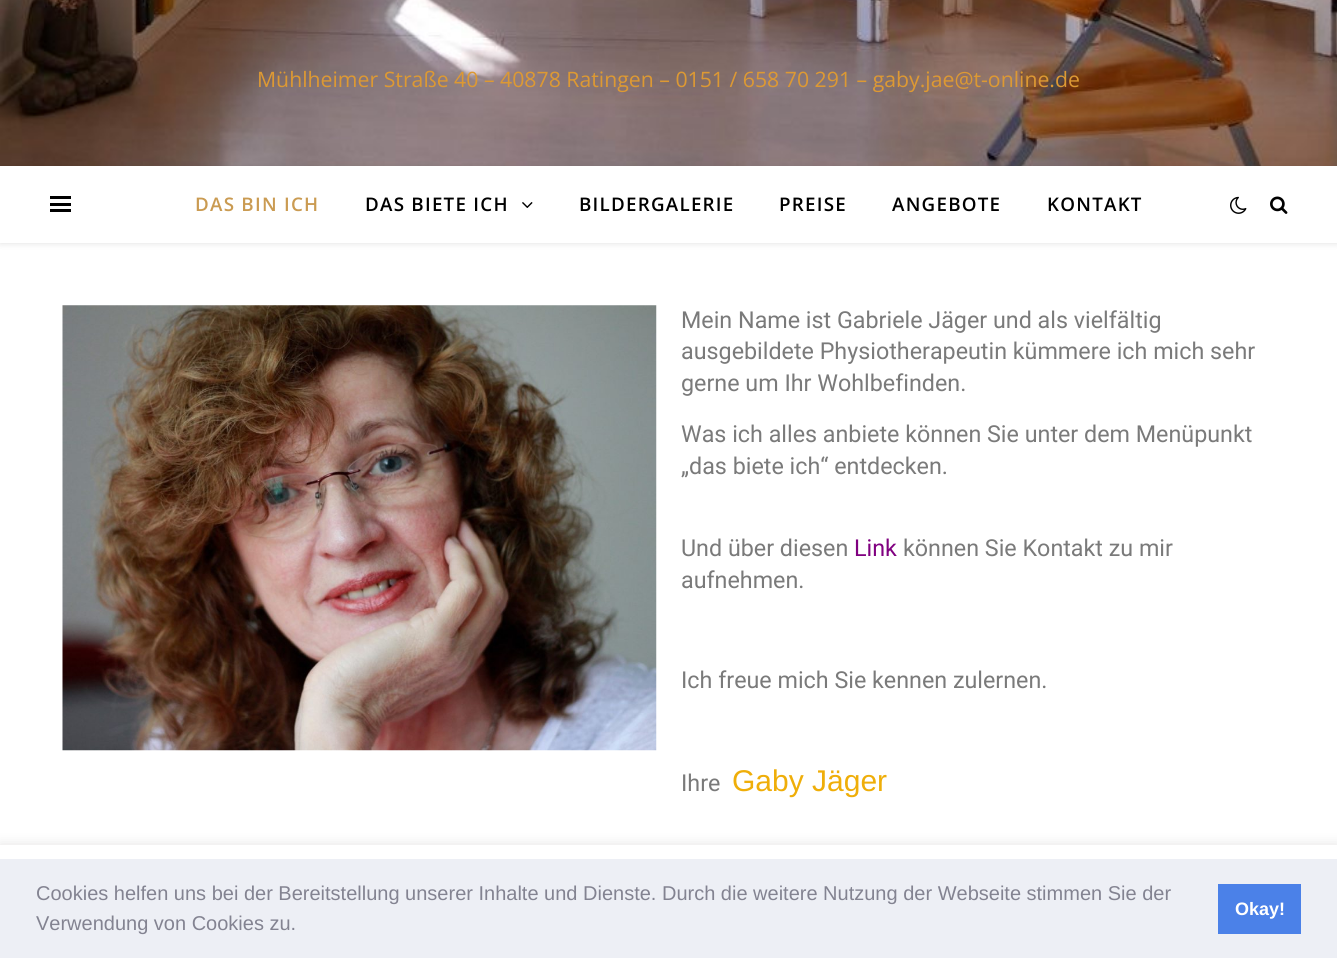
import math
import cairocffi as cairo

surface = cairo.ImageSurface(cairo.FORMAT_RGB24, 1337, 958)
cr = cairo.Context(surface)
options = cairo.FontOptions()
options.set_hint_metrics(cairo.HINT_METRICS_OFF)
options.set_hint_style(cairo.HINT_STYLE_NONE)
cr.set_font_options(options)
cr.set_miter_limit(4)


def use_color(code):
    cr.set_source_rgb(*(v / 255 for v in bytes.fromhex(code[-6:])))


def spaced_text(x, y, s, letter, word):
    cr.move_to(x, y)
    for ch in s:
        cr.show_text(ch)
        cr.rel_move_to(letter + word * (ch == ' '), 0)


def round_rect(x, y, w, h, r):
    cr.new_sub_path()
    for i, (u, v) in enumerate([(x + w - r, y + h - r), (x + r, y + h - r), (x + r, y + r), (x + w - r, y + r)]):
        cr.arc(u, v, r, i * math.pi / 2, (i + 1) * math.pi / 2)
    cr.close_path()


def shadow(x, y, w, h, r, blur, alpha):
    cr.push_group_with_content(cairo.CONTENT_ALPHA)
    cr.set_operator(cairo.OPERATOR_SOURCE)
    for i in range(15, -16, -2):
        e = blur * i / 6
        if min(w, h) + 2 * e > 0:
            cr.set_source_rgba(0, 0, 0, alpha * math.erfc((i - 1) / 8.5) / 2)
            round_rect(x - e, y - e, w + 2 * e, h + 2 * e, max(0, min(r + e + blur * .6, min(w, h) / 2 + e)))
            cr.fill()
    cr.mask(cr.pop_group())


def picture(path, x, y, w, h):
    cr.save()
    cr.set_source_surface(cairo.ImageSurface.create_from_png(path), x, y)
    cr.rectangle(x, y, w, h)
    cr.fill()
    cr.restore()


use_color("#ffffff")
cr.paint()
picture("img1.png", 0, 0, 1337, 166)
cr.select_font_face("Open Sans")
cr.set_font_size(21.25)
use_color("#dd9933")
cr.move_to(257, 87)
cr.show_text("Mühlheimer Straße 40 – 40878 Ratingen – 0151 / 658 70 291 – gaby.jae@t-online.de")
use_color("#000000")
shadow(0, 168, 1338, 76, 0, 3, 0.1)
use_color("#ffffff")
cr.rectangle(0, 166, 1337, 77)
cr.fill()
use_color("#000000")
cr.rectangle(50, 196, 21, 3)
cr.fill()
cr.rectangle(50, 203, 21, 3)
cr.fill()
cr.rectangle(50, 209, 21, 3)
cr.fill()
cr.select_font_face("Open Sans SemiBold")
cr.set_font_size(18.75)
use_color("#ca9b52")
spaced_text(195, 211, "DAS BIN ICH", 1.25, 0)
use_color("#000000")
spaced_text(365, 211, "DAS BIETE ICH", 1.25, 0)
picture("img2.png", 522, 202, 11, 6)
spaced_text(579, 211, "BILDERGALERIE", 1.25, 0)
spaced_text(779, 211, "PREISE", 1.25, 0)
spaced_text(892, 211, "ANGEBOTE", 1.25, 0)
spaced_text(1047, 211, "KONTAKT", 1.25, 0)
picture("img3.png", 1230, 196, 17, 18)
picture("img4.png", 1270, 196, 18, 18)
picture("img5.png", 62, 305, 595, 446)
cr.select_font_face("Roboto")
cr.set_font_size(23.3)
use_color("#7a7a7a")
cr.move_to(681, 328)
cr.show_text("Mein Name ist Gabriele Jäger und als vielfältig")
cr.move_to(681, 359)
cr.show_text("ausgebildete Physiotherapeutin kümmere ich mich sehr")
cr.move_to(681, 391)
cr.show_text("gerne um Ihr Wohlbefinden.")
cr.move_to(681, 442)
cr.show_text("Was ich alles anbiete können Sie unter dem Menüpunkt")
cr.move_to(681, 474)
cr.show_text("„das biete ich“ entdecken.")
cr.move_to(681, 556)
cr.show_text("Und über diesen")
use_color("#800080")
cr.move_to(854, 556)
cr.show_text("Link")
use_color("#7a7a7a")
cr.move_to(903, 556)
cr.show_text("können Sie Kontakt zu mir")
cr.move_to(681, 588)
cr.show_text("aufnehmen.")
cr.move_to(681, 688)
cr.show_text("Ich freue mich Sie kennen zulernen.")
cr.move_to(681, 791)
cr.show_text("Ihre")
cr.select_font_face("Liberation Sans")
cr.set_font_size(30)
use_color("#efae09")
cr.move_to(732, 791)
cr.show_text("Gaby Jäger")
use_color("#acabab")
shadow(0, 844, 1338, 114, 0, 6, 0.3)
use_color("#ffffff")
cr.rectangle(0, 845, 1337, 14)
cr.fill()
use_color("#edeff5")
cr.rectangle(0, 859, 1337, 99)
cr.fill()
cr.set_font_size(20)
use_color("#838391")
cr.move_to(36, 900)
cr.show_text("Cookies helfen uns bei der Bereitstellung unserer Inhalte und Dienste. Durch die weitere Nutzung der Webseite stimmen Sie der")
cr.move_to(36, 930)
cr.show_text("Verwendung von Cookies zu.")
use_color("#4b81e8")
cr.rectangle(1218, 884, 83, 50)
cr.fill()
cr.select_font_face("Liberation Sans", cairo.FONT_SLANT_NORMAL, cairo.FONT_WEIGHT_BOLD)
cr.set_font_size(18)
use_color("#ffffff")
cr.move_to(1235, 915)
cr.show_text("Okay!")
surface.write_to_png("result.png")
